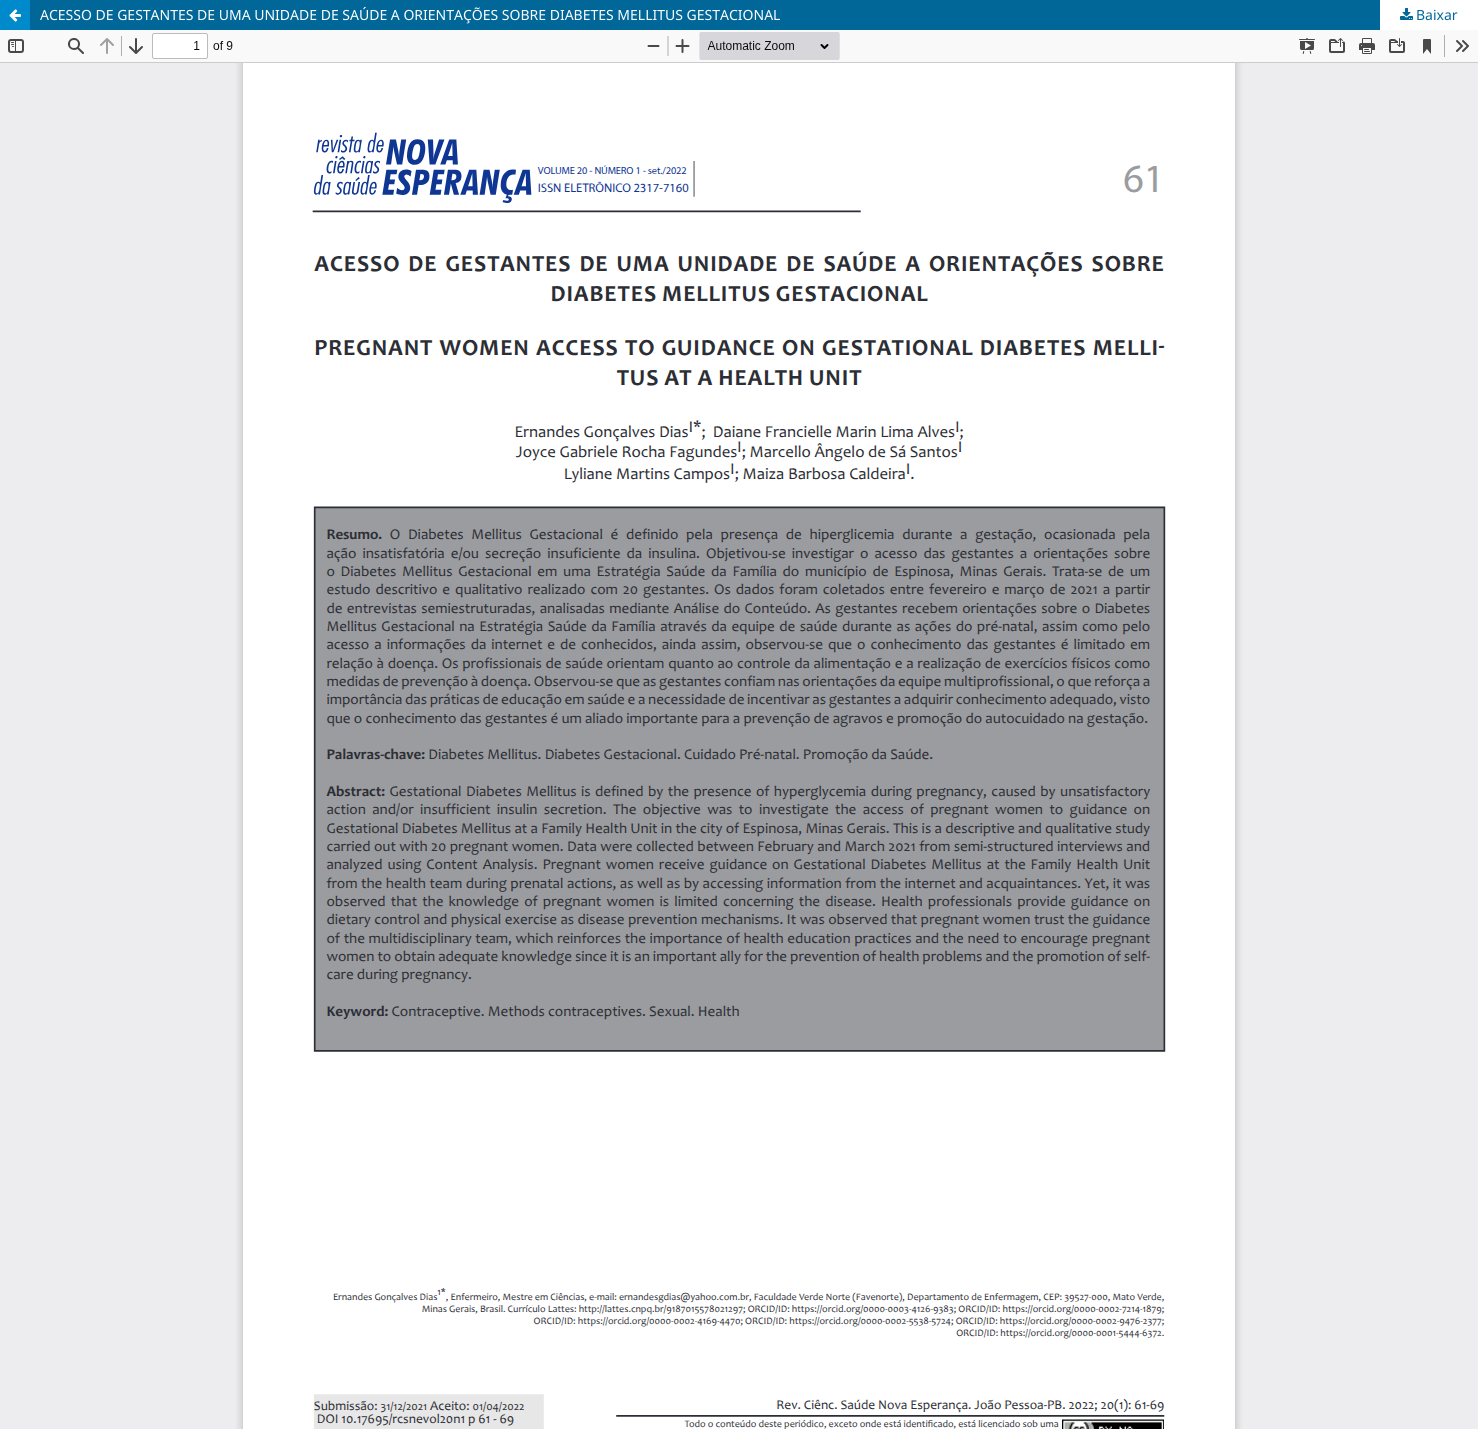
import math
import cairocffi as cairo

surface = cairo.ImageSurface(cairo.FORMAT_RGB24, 1478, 1429)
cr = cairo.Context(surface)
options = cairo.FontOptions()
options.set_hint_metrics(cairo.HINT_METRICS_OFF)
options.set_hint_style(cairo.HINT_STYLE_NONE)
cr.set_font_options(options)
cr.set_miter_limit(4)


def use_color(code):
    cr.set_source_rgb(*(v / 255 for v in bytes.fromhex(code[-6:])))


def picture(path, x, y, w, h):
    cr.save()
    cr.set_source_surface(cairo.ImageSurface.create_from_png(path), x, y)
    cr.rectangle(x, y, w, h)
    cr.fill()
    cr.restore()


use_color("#ffffff")
cr.paint()
use_color("#006798")
cr.rectangle(30, 0, 1350, 30)
cr.fill()
use_color("#008acb")
cr.rectangle(0, 0, 30, 30)
cr.fill()
picture("img1.png", 9, 9, 12, 13)
cr.select_font_face("Noto Sans")
cr.set_font_size(14)
use_color("#ffffff")
cr.move_to(40, 20)
cr.show_text("ACESSO DE GESTANTES DE UMA UNIDADE DE SAÚDE A ORIENTAÇÕES SOBRE DIABETES MELLITUS GESTACIONAL")
picture("img2.png", 1400, 8, 13, 12)
use_color("#006798")
cr.move_to(1416, 20)
cr.show_text("Baixar")
picture("img3.png", 0, 30, 1478, 1399)
surface.write_to_png("result.png")
